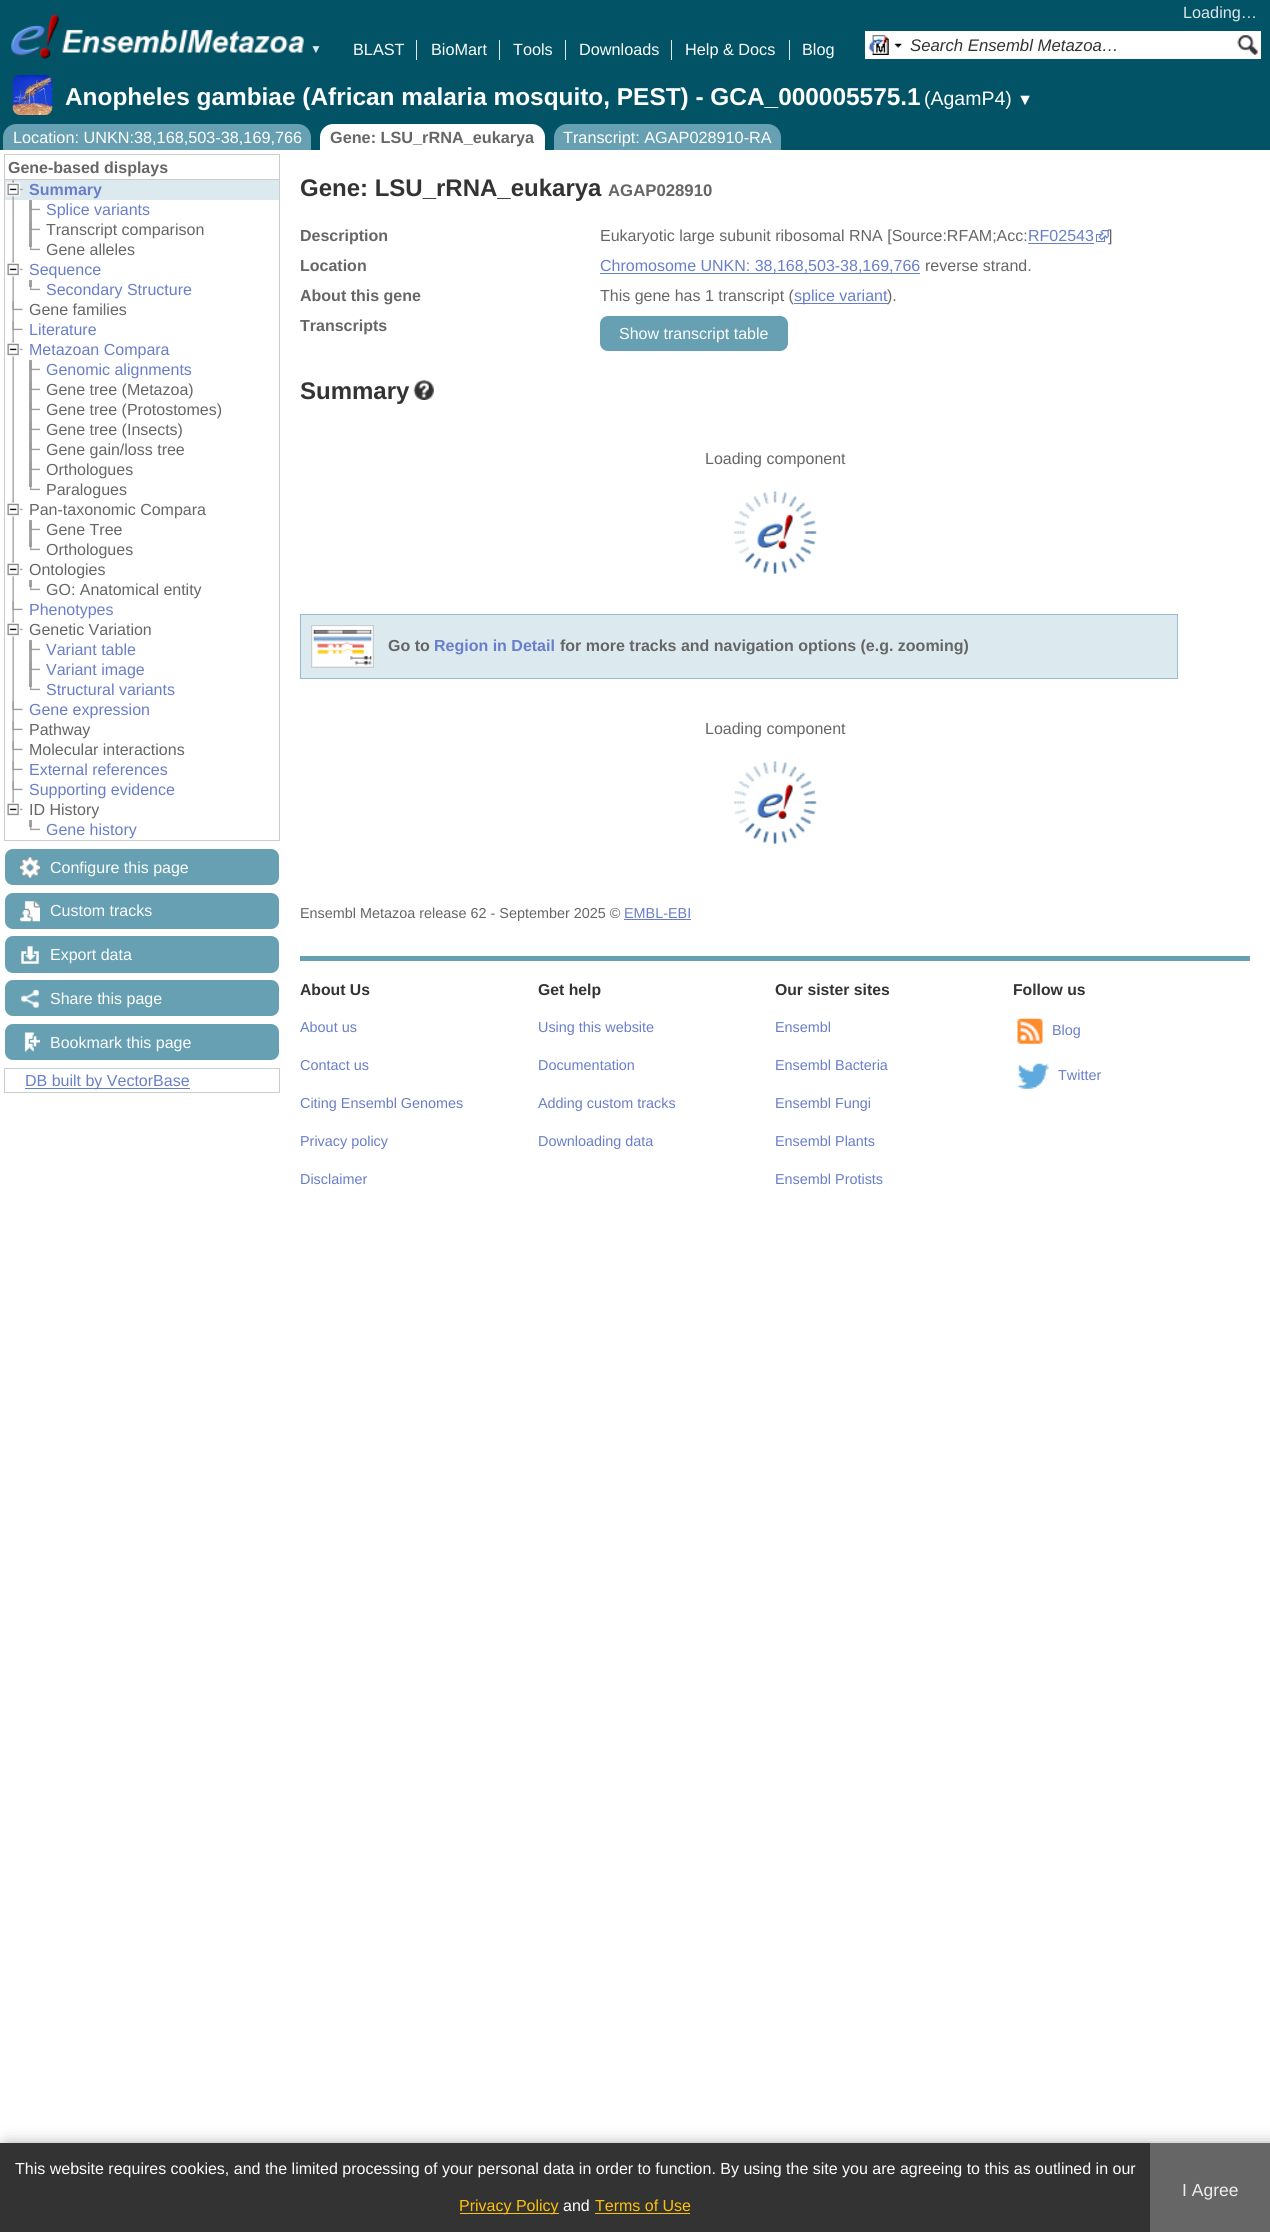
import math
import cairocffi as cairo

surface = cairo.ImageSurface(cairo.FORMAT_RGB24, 1270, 2232)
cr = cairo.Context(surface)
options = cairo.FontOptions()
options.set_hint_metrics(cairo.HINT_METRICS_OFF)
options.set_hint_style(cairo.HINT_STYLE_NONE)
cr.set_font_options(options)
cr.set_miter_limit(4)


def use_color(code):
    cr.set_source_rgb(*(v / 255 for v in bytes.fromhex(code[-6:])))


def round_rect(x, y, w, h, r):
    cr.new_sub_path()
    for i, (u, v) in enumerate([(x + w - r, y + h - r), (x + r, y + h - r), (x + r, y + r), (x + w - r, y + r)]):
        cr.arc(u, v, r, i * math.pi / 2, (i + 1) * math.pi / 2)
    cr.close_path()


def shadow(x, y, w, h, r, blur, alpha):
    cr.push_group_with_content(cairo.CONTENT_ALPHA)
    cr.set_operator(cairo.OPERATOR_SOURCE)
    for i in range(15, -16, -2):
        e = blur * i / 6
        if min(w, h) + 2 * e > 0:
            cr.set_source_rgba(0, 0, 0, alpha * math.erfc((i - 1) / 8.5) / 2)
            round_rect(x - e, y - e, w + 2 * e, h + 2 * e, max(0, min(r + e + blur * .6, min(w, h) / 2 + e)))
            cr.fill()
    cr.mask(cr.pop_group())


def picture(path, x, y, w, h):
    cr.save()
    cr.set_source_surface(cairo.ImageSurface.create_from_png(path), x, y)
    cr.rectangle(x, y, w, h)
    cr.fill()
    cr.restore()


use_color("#ffffff")
cr.paint()
use_color("#015365")
cr.rectangle(0, 0, 1270, 150)
cr.fill()
picture("img1.png", 11, 14, 48, 45)
picture("img2.png", 62, 29, 242, 24)
cr.select_font_face("Liberation Sans")
cr.set_font_size(12)
use_color("#dce9ef")
cr.move_to(310, 53)
cr.show_text("▼")
cr.set_font_size(16.25)
cr.move_to(1183, 18)
cr.show_text("Loading…")
cr.rectangle(416, 40, 1, 20)
cr.fill()
use_color("#ffffff")
cr.move_to(353, 55)
cr.show_text("BLAST")
use_color("#dce9ef")
cr.rectangle(499, 40, 1, 20)
cr.fill()
use_color("#ffffff")
cr.move_to(431, 55)
cr.show_text("BioMart")
use_color("#dce9ef")
cr.rectangle(565, 40, 1, 20)
cr.fill()
use_color("#ffffff")
cr.move_to(513, 55)
cr.show_text("Tools")
use_color("#dce9ef")
cr.rectangle(671, 40, 1, 20)
cr.fill()
use_color("#ffffff")
cr.move_to(579, 55)
cr.show_text("Downloads")
use_color("#dce9ef")
cr.rectangle(789, 40, 1, 20)
cr.fill()
use_color("#ffffff")
cr.move_to(685, 55)
cr.show_text("Help & Docs")
cr.move_to(802, 55)
cr.show_text("Blog")
cr.rectangle(865, 31, 396, 28)
cr.fill()
picture("img3.png", 868, 35, 21, 20)
picture("img4.png", 894, 43, 8, 5)
cr.select_font_face("Liberation Sans", cairo.FONT_SLANT_ITALIC)
cr.set_font_size(16.75)
use_color("#333333")
cr.move_to(910, 51)
cr.show_text("Search Ensembl Metazoa…")
picture("img5.png", 1237, 35, 21, 20)
picture("img6.png", 12, 75, 41, 40)
cr.select_font_face("Liberation Sans", cairo.FONT_SLANT_NORMAL, cairo.FONT_WEIGHT_BOLD)
cr.set_font_size(24.4)
use_color("#ffffff")
cr.move_to(65, 105)
cr.show_text("Anopheles gambiae (African malaria mosquito, PEST) - GCA_000005575.1")
cr.select_font_face("Liberation Sans")
cr.set_font_size(19.5)
cr.move_to(924, 105)
cr.show_text("(AgamP4)")
cr.set_font_size(16.25)
cr.move_to(1017, 105)
cr.show_text("▼")
use_color("#66a0b2")
cr.new_path()
cr.move_to(16, 124)
cr.line_to(298, 124)
cr.curve_to(305, 124, 311, 130, 311, 137)
cr.line_to(311, 150)
cr.line_to(3, 150)
cr.line_to(3, 137)
cr.curve_to(3, 130, 9, 124, 16, 124)
cr.close_path()
cr.fill()
use_color("#ffffff")
cr.move_to(13, 143)
cr.show_text("Location: UNKN:38,168,503-38,169,766")
cr.new_path()
cr.move_to(333, 124)
cr.line_to(532, 124)
cr.curve_to(539, 124, 545, 130, 545, 137)
cr.line_to(545, 150)
cr.line_to(320, 150)
cr.line_to(320, 137)
cr.curve_to(320, 130, 326, 124, 333, 124)
cr.close_path()
cr.fill()
cr.select_font_face("Liberation Sans", cairo.FONT_SLANT_NORMAL, cairo.FONT_WEIGHT_BOLD)
use_color("#666666")
cr.move_to(330, 143)
cr.show_text("Gene: LSU_rRNA_eukarya")
use_color("#66a0b2")
cr.new_path()
cr.move_to(567, 124)
cr.line_to(768, 124)
cr.curve_to(775, 124, 781, 130, 781, 137)
cr.line_to(781, 150)
cr.line_to(554, 150)
cr.line_to(554, 137)
cr.curve_to(554, 130, 560, 124, 567, 124)
cr.close_path()
cr.fill()
cr.select_font_face("Liberation Sans")
use_color("#ffffff")
cr.move_to(563, 143)
cr.show_text("Transcript: AGAP028910-RA")
use_color("#cccccc")
cr.rectangle(4, 154, 276, 1)
cr.fill()
cr.rectangle(279, 154, 1, 25)
cr.fill()
cr.rectangle(4, 154, 1, 25)
cr.fill()
cr.select_font_face("Liberation Sans", cairo.FONT_SLANT_NORMAL, cairo.FONT_WEIGHT_BOLD)
cr.set_font_size(16)
use_color("#666666")
cr.move_to(8, 173)
cr.show_text("Gene-based displays")
cr.rectangle(4.5, 179.5, 275, 661)
use_color("#cccccc")
cr.set_line_width(1)
cr.stroke()
use_color("#dce9ef")
cr.rectangle(5, 180, 274, 20)
cr.fill()
picture("img7.png", 12, 180, 2, 20)
picture("img8.png", 6, 181, 17, 16)
use_color("#697ec9")
cr.move_to(29, 195)
cr.show_text("Summary")
picture("img9.png", 12, 200, 2, 60)
use_color("#a5a5a5")
cr.rectangle(29, 200, 3, 47)
cr.fill()
picture("img10.png", 30, 201, 10, 10)
cr.select_font_face("Liberation Sans")
use_color("#697ec9")
cr.move_to(46, 215)
cr.show_text("Splice variants")
picture("img10.png", 30, 221, 10, 10)
use_color("#666666")
cr.move_to(46, 235)
cr.show_text("Transcript comparison")
picture("img11.png", 29, 241, 11, 10)
cr.move_to(46, 255)
cr.show_text("Gene alleles")
picture("img12.png", 12, 260, 2, 20)
picture("img13.png", 7, 261, 16, 16)
use_color("#697ec9")
cr.move_to(29, 275)
cr.show_text("Sequence")
picture("img12.png", 12, 280, 2, 20)
use_color("#a5a5a5")
cr.rectangle(29, 280, 3, 7)
cr.fill()
picture("img11.png", 29, 281, 11, 10)
use_color("#697ec9")
cr.move_to(46, 295)
cr.show_text("Secondary Structure")
picture("img12.png", 12, 300, 2, 20)
picture("img14.png", 12, 301, 11, 10)
use_color("#666666")
cr.move_to(29, 315)
cr.show_text("Gene families")
picture("img12.png", 12, 320, 2, 20)
picture("img14.png", 12, 321, 11, 10)
use_color("#697ec9")
cr.move_to(29, 335)
cr.show_text("Literature")
picture("img12.png", 12, 340, 2, 20)
picture("img13.png", 7, 341, 16, 16)
cr.move_to(29, 355)
cr.show_text("Metazoan Compara")
picture("img15.png", 12, 360, 2, 140)
use_color("#a5a5a5")
cr.rectangle(29, 360, 3, 127)
cr.fill()
picture("img10.png", 30, 361, 10, 10)
use_color("#697ec9")
cr.move_to(46, 375)
cr.show_text("Genomic alignments")
picture("img10.png", 30, 381, 10, 10)
use_color("#666666")
cr.move_to(46, 395)
cr.show_text("Gene tree (Metazoa)")
picture("img10.png", 30, 401, 10, 10)
cr.move_to(46, 415)
cr.show_text("Gene tree (Protostomes)")
picture("img10.png", 30, 421, 10, 10)
cr.move_to(46, 435)
cr.show_text("Gene tree (Insects)")
picture("img10.png", 30, 441, 10, 10)
cr.move_to(46, 455)
cr.show_text("Gene gain/loss tree")
picture("img10.png", 30, 461, 10, 10)
cr.move_to(46, 475)
cr.show_text("Orthologues")
picture("img11.png", 29, 481, 11, 10)
cr.move_to(46, 495)
cr.show_text("Paralogues")
picture("img12.png", 12, 500, 2, 20)
picture("img13.png", 7, 501, 16, 16)
cr.move_to(29, 515)
cr.show_text("Pan-taxonomic Compara")
picture("img16.png", 12, 520, 2, 40)
use_color("#a5a5a5")
cr.rectangle(29, 520, 3, 27)
cr.fill()
picture("img10.png", 30, 521, 10, 10)
use_color("#666666")
cr.move_to(46, 535)
cr.show_text("Gene Tree")
picture("img11.png", 29, 541, 11, 10)
cr.move_to(46, 555)
cr.show_text("Orthologues")
picture("img12.png", 12, 560, 2, 20)
picture("img13.png", 7, 561, 16, 16)
cr.move_to(29, 575)
cr.show_text("Ontologies")
picture("img12.png", 12, 580, 2, 20)
use_color("#a5a5a5")
cr.rectangle(29, 580, 3, 7)
cr.fill()
picture("img11.png", 29, 581, 11, 10)
use_color("#666666")
cr.move_to(46, 595)
cr.show_text("GO: Anatomical entity")
picture("img12.png", 12, 600, 2, 20)
picture("img14.png", 12, 601, 11, 10)
use_color("#697ec9")
cr.move_to(29, 615)
cr.show_text("Phenotypes")
picture("img12.png", 12, 620, 2, 20)
picture("img13.png", 7, 621, 16, 16)
use_color("#666666")
cr.move_to(29, 635)
cr.show_text("Genetic Variation")
picture("img9.png", 12, 640, 2, 60)
use_color("#a5a5a5")
cr.rectangle(29, 640, 3, 47)
cr.fill()
picture("img10.png", 30, 641, 10, 10)
use_color("#697ec9")
cr.move_to(46, 655)
cr.show_text("Variant table")
picture("img10.png", 30, 661, 10, 10)
cr.move_to(46, 675)
cr.show_text("Variant image")
picture("img11.png", 29, 681, 11, 10)
cr.move_to(46, 695)
cr.show_text("Structural variants")
picture("img12.png", 12, 700, 2, 20)
picture("img14.png", 12, 701, 11, 10)
cr.move_to(29, 715)
cr.show_text("Gene expression")
picture("img12.png", 12, 720, 2, 20)
picture("img14.png", 12, 721, 11, 10)
use_color("#666666")
cr.move_to(29, 735)
cr.show_text("Pathway")
picture("img12.png", 12, 740, 2, 20)
picture("img14.png", 12, 741, 11, 10)
cr.move_to(29, 755)
cr.show_text("Molecular interactions")
picture("img12.png", 12, 760, 2, 20)
picture("img14.png", 12, 761, 11, 10)
use_color("#697ec9")
cr.move_to(29, 775)
cr.show_text("External references")
picture("img12.png", 12, 780, 2, 20)
picture("img14.png", 12, 781, 11, 10)
cr.move_to(29, 795)
cr.show_text("Supporting evidence")
picture("img17.png", 12, 800, 2, 3)
picture("img18.png", 7, 801, 16, 15)
use_color("#666666")
cr.move_to(29, 815)
cr.show_text("ID History")
use_color("#a5a5a5")
cr.rectangle(29, 820, 3, 7)
cr.fill()
picture("img11.png", 29, 821, 11, 10)
use_color("#697ec9")
cr.move_to(46, 835)
cr.show_text("Gene history")
use_color("#66a0b2")
round_rect(5, 849, 274, 36, 8)
cr.fill()
picture("img19.png", 20, 857, 20, 21)
use_color("#ffffff")
cr.move_to(50, 873)
cr.show_text("Configure this page")
use_color("#66a0b2")
round_rect(5, 893, 274, 36, 8)
cr.fill()
picture("img20.png", 20, 901, 20, 21)
use_color("#ffffff")
cr.move_to(50, 916)
cr.show_text("Custom tracks")
use_color("#66a0b2")
round_rect(5, 936, 274, 37, 8)
cr.fill()
picture("img21.png", 21, 946, 18, 18)
use_color("#ffffff")
cr.move_to(50, 960)
cr.show_text("Export data")
use_color("#66a0b2")
round_rect(5, 980, 274, 36, 8)
cr.fill()
picture("img22.png", 21, 989, 18, 19)
use_color("#ffffff")
cr.move_to(50, 1004)
cr.show_text("Share this page")
use_color("#66a0b2")
round_rect(5, 1024, 274, 36, 8)
cr.fill()
picture("img23.png", 24, 1032, 16, 21)
use_color("#ffffff")
cr.move_to(50, 1048)
cr.show_text("Bookmark this page")
cr.rectangle(4.5, 1068.5, 275, 24)
use_color("#cccccc")
cr.stroke()
use_color("#697ec9")
cr.rectangle(25, 1088, 165, 1)
cr.fill()
cr.move_to(25, 1086)
cr.show_text("DB built by VectorBase")
cr.select_font_face("Liberation Sans", cairo.FONT_SLANT_NORMAL, cairo.FONT_WEIGHT_BOLD)
cr.set_font_size(24)
use_color("#333333")
cr.move_to(300, 196)
cr.show_text("Gene: LSU_rRNA_eukarya")
cr.set_font_size(16.75)
use_color("#666666")
cr.move_to(608, 196)
cr.show_text("AGAP028910")
cr.set_font_size(16)
cr.move_to(300, 241)
cr.show_text("Description")
cr.select_font_face("Liberation Sans")
cr.move_to(600, 241)
cr.show_text("Eukaryotic large subunit ribosomal RNA [Source:RFAM;Acc:")
use_color("#697ec9")
cr.move_to(1028, 241)
cr.show_text("RF02543")
cr.rectangle(1028, 243, 66, 1)
cr.fill()
picture("img24.png", 1096, 230, 13, 12)
use_color("#666666")
cr.move_to(1108, 241)
cr.show_text("]")
cr.select_font_face("Liberation Sans", cairo.FONT_SLANT_NORMAL, cairo.FONT_WEIGHT_BOLD)
cr.move_to(300, 271)
cr.show_text("Location")
use_color("#697ec9")
cr.rectangle(600, 273, 320, 1)
cr.fill()
cr.select_font_face("Liberation Sans")
cr.move_to(600, 271)
cr.show_text("Chromosome UNKN: 38,168,503-38,169,766")
use_color("#666666")
cr.move_to(925, 271)
cr.show_text("reverse strand.")
cr.select_font_face("Liberation Sans", cairo.FONT_SLANT_NORMAL, cairo.FONT_WEIGHT_BOLD)
cr.move_to(300, 301)
cr.show_text("About this gene")
cr.select_font_face("Liberation Sans")
cr.move_to(600, 301)
cr.show_text("This gene has 1 transcript (")
use_color("#697ec9")
cr.rectangle(794, 303, 94, 1)
cr.fill()
cr.move_to(794, 301)
cr.show_text("splice variant")
use_color("#666666")
cr.move_to(887, 301)
cr.show_text(").")
cr.select_font_face("Liberation Sans", cairo.FONT_SLANT_NORMAL, cairo.FONT_WEIGHT_BOLD)
cr.move_to(300, 331)
cr.show_text("Transcripts")
use_color("#66a0b2")
round_rect(600, 316, 188, 35, 8)
cr.fill()
cr.select_font_face("Liberation Sans")
use_color("#ffffff")
cr.move_to(619, 339)
cr.show_text("Show transcript table")
cr.select_font_face("Liberation Sans", cairo.FONT_SLANT_NORMAL, cairo.FONT_WEIGHT_BOLD)
cr.set_font_size(24)
use_color("#333333")
cr.move_to(300, 399)
cr.show_text("Summary")
picture("img25.png", 413, 380, 21, 20)
picture("img26.png", 733, 491, 84, 83)
cr.select_font_face("Liberation Sans")
cr.set_font_size(16)
use_color("#666666")
cr.move_to(705, 464)
cr.show_text("Loading component")
use_color("#dce9ef")
cr.rectangle(300.5, 614.5, 877, 64)
cr.fill_preserve()
use_color("#96bccf")
cr.stroke()
cr.rectangle(311.5, 625.5, 62, 42)
use_color("#cccccc")
cr.stroke()
picture("img27.png", 312, 626, 61, 41)
cr.select_font_face("Liberation Sans", cairo.FONT_SLANT_NORMAL, cairo.FONT_WEIGHT_BOLD)
use_color("#666666")
cr.move_to(388, 651)
cr.show_text("Go to")
use_color("#697ec9")
cr.move_to(434, 651)
cr.show_text("Region in Detail")
use_color("#666666")
cr.move_to(560, 651)
cr.show_text("for more tracks and navigation options (e.g. zooming)")
picture("img26.png", 733, 761, 84, 83)
cr.select_font_face("Liberation Sans")
cr.move_to(705, 734)
cr.show_text("Loading component")
cr.set_font_size(14.4)
cr.move_to(300, 918)
cr.show_text("Ensembl Metazoa release 62 - September 2025 ©")
use_color("#697ec9")
cr.move_to(624, 918)
cr.show_text("EMBL-EBI")
cr.rectangle(624, 919, 67, 1)
cr.fill()
use_color("#66a0b2")
cr.rectangle(300, 956, 950, 5)
cr.fill()
cr.select_font_face("Liberation Sans", cairo.FONT_SLANT_NORMAL, cairo.FONT_WEIGHT_BOLD)
cr.set_font_size(15.75)
use_color("#333333")
cr.move_to(300, 995)
cr.show_text("About Us")
cr.select_font_face("Liberation Sans")
cr.set_font_size(14.4)
use_color("#697ec9")
cr.move_to(300, 1032)
cr.show_text("About us")
cr.move_to(300, 1070)
cr.show_text("Contact us")
cr.move_to(300, 1108)
cr.show_text("Citing Ensembl Genomes")
cr.move_to(300, 1146)
cr.show_text("Privacy policy")
cr.move_to(300, 1184)
cr.show_text("Disclaimer")
cr.select_font_face("Liberation Sans", cairo.FONT_SLANT_NORMAL, cairo.FONT_WEIGHT_BOLD)
cr.set_font_size(15.75)
use_color("#333333")
cr.move_to(538, 995)
cr.show_text("Get help")
cr.select_font_face("Liberation Sans")
cr.set_font_size(14.4)
use_color("#697ec9")
cr.move_to(538, 1032)
cr.show_text("Using this website")
cr.move_to(538, 1070)
cr.show_text("Documentation")
cr.move_to(538, 1108)
cr.show_text("Adding custom tracks")
cr.move_to(538, 1146)
cr.show_text("Downloading data")
cr.select_font_face("Liberation Sans", cairo.FONT_SLANT_NORMAL, cairo.FONT_WEIGHT_BOLD)
cr.set_font_size(15.75)
use_color("#333333")
cr.move_to(775, 995)
cr.show_text("Our sister sites")
cr.select_font_face("Liberation Sans")
cr.set_font_size(14.4)
use_color("#697ec9")
cr.move_to(775, 1032)
cr.show_text("Ensembl")
cr.move_to(775, 1070)
cr.show_text("Ensembl Bacteria")
cr.move_to(775, 1108)
cr.show_text("Ensembl Fungi")
cr.move_to(775, 1146)
cr.show_text("Ensembl Plants")
cr.move_to(775, 1184)
cr.show_text("Ensembl Protists")
cr.select_font_face("Liberation Sans", cairo.FONT_SLANT_NORMAL, cairo.FONT_WEIGHT_BOLD)
cr.set_font_size(15.75)
use_color("#333333")
cr.move_to(1013, 995)
cr.show_text("Follow us")
picture("img28.png", 1017, 1018, 26, 26)
cr.select_font_face("Liberation Sans")
cr.set_font_size(14.4)
use_color("#697ec9")
cr.move_to(1052, 1035)
cr.show_text("Blog")
picture("img29.png", 1017, 1063, 32, 26)
cr.move_to(1058, 1080)
cr.show_text("Twitter")
use_color("#666666")
shadow(6, 2149, 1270, 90, 0, 9.5, 1)
use_color("#333333")
cr.rectangle(0, 2143, 1150, 89)
cr.fill()
cr.set_font_size(16)
use_color("#ffffff")
cr.move_to(15, 2174)
cr.show_text("This website requires cookies, and the limited processing of your personal data in order to function. By using the site you are agreeing to this as outlined in our")
use_color("#ffc107")
cr.rectangle(460, 2213, 99, 1)
cr.fill()
cr.move_to(459, 2211)
cr.show_text("Privacy Policy")
use_color("#ffffff")
cr.move_to(563, 2211)
cr.show_text("and")
use_color("#ffc107")
cr.move_to(595, 2211)
cr.show_text("Terms of Use")
cr.rectangle(595, 2213, 95, 1)
cr.fill()
use_color("#666666")
cr.rectangle(1150, 2143, 120, 89)
cr.fill()
cr.set_font_size(17.5)
use_color("#eeeeee")
cr.move_to(1182, 2196)
cr.show_text("I Agree")
surface.write_to_png("result.png")
